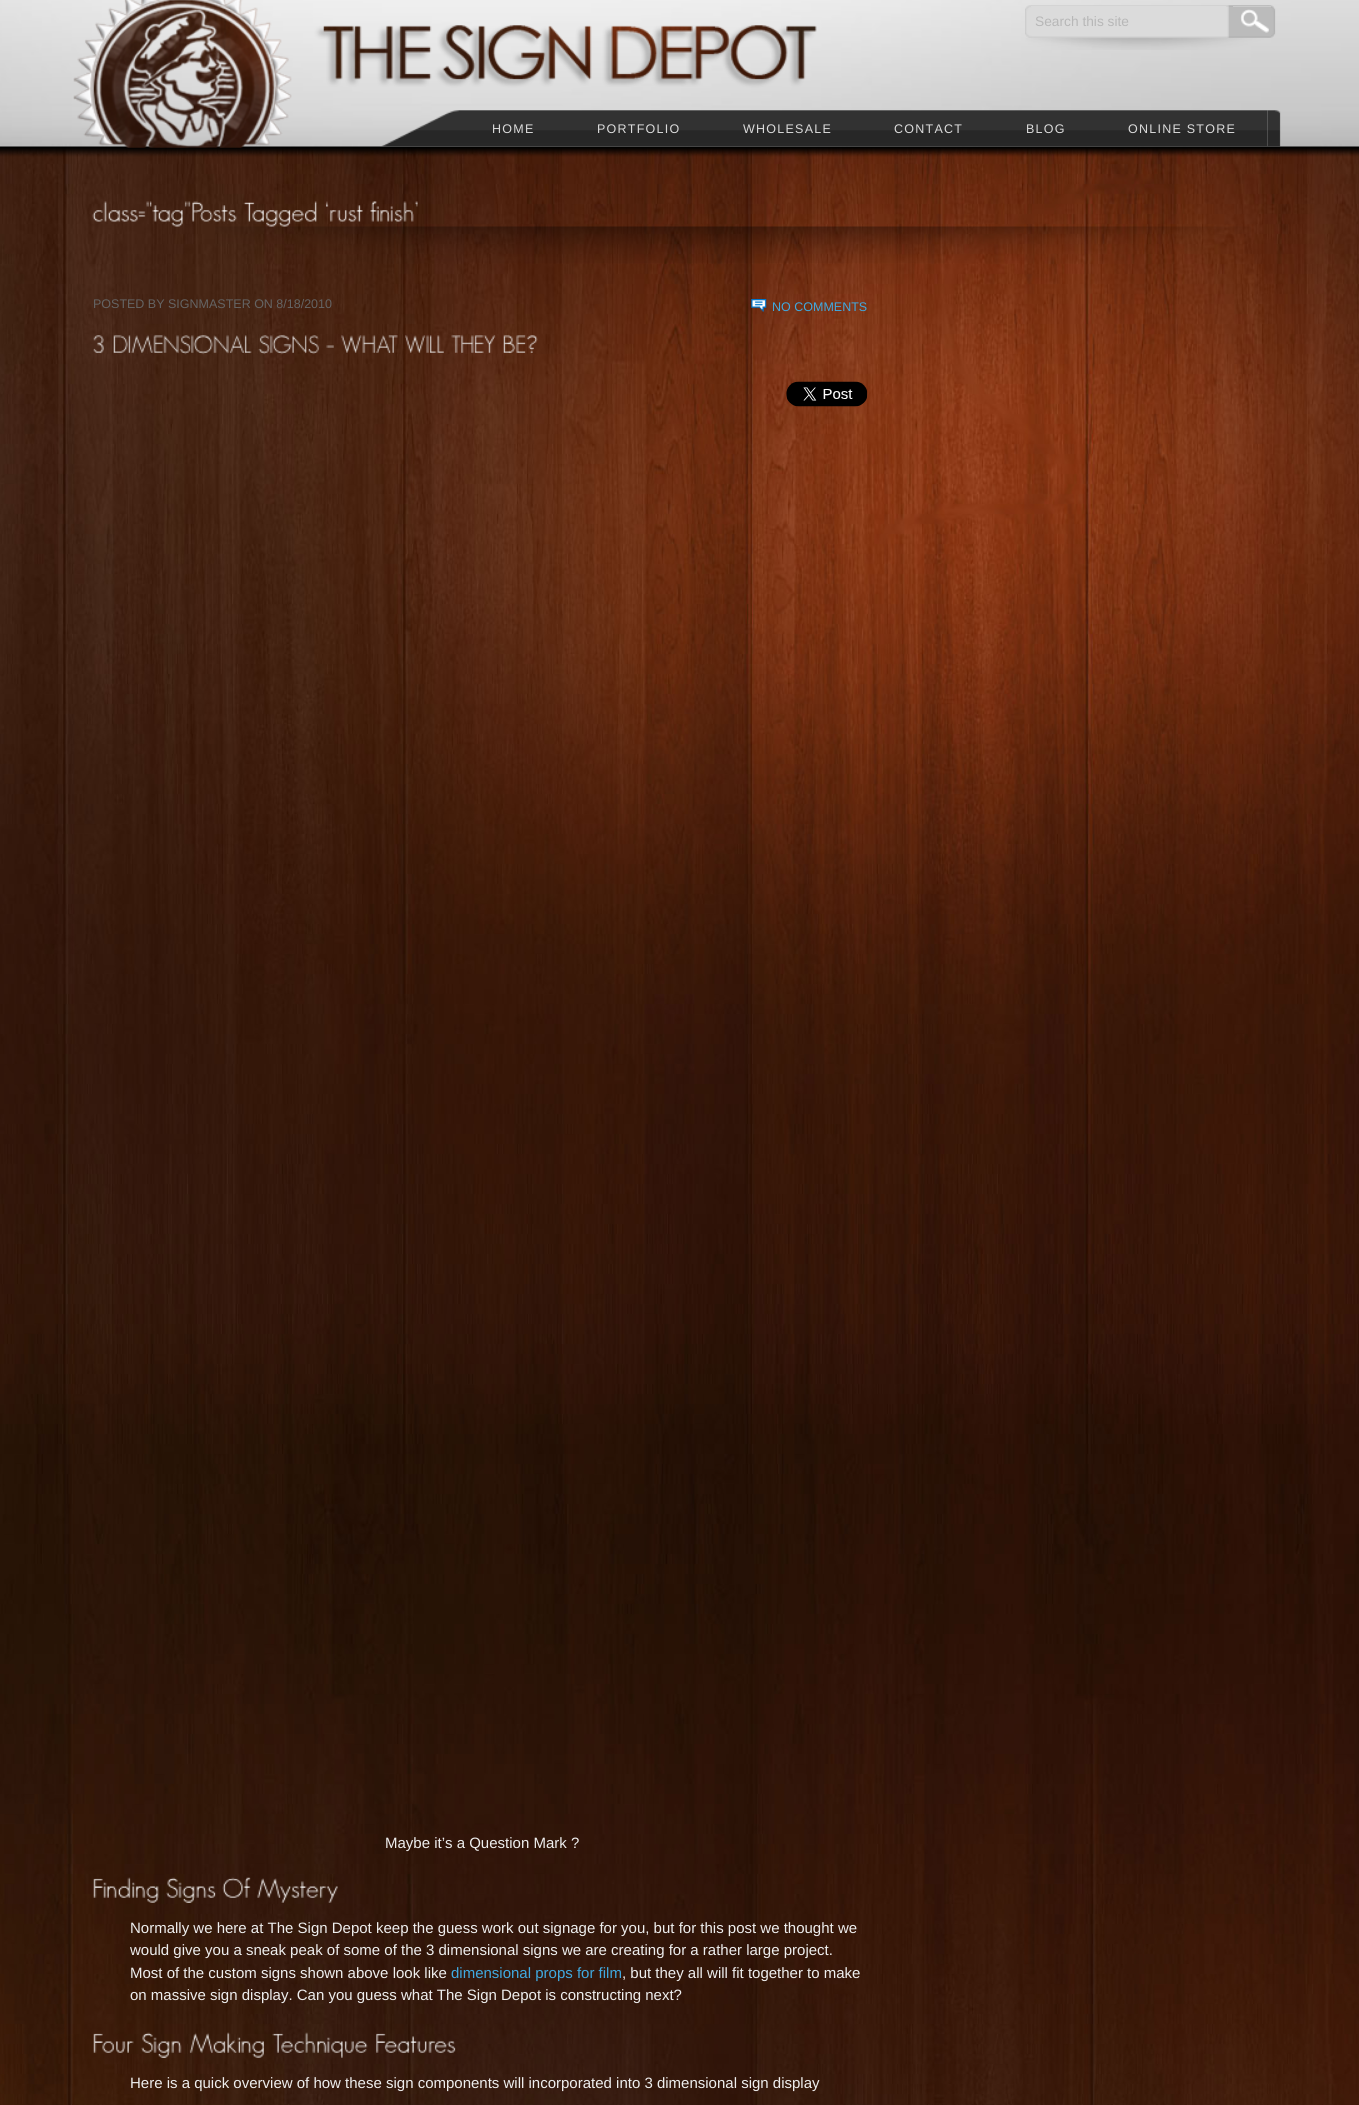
import math
import cairocffi as cairo

surface = cairo.ImageSurface(cairo.FORMAT_RGB24, 1359, 2105)
cr = cairo.Context(surface)
options = cairo.FontOptions()
options.set_hint_metrics(cairo.HINT_METRICS_OFF)
options.set_hint_style(cairo.HINT_STYLE_NONE)
cr.set_font_options(options)
cr.set_miter_limit(4)


def use_color(code):
    cr.set_source_rgb(*(v / 255 for v in bytes.fromhex(code[-6:])))


def spaced_text(x, y, s, letter, word):
    cr.move_to(x, y)
    for ch in s:
        cr.show_text(ch)
        cr.rel_move_to(letter + word * (ch == ' '), 0)


def picture(path, x, y, w, h):
    cr.save()
    cr.set_source_surface(cairo.ImageSurface.create_from_png(path), x, y)
    cr.rectangle(x, y, w, h)
    cr.fill()
    cr.restore()


use_color("#ffffff")
cr.paint()
picture("img1.png", 0, 147, 1359, 1958)
picture("img2.png", 0, 0, 1359, 157)
picture("img3.png", 73, 0, 744, 148)
picture("img4.png", 1025, 5, 251, 45)
use_color("#dbdbdb")
cr.rectangle(1031, 6, 195, 1)
cr.fill()
cr.select_font_face("Liberation Sans")
cr.set_font_size(13.75)
use_color("#b7b7b7")
cr.move_to(1035, 26)
cr.show_text("Search this site")
use_color("#dbdbdb")
cr.rectangle(1233, 6, 38, 1)
cr.fill()
picture("img5.png", 1233, 6, 38, 30)
picture("img6.png", 381, 110, 79, 37)
picture("img8.png", 1267, 110, 14, 37)
picture("img7.png", 460, 110, 808, 37)
cr.set_font_size(12.5)
spaced_text(492, 133, "HOME", 1.25, 0)
spaced_text(597, 133, "PORTFOLIO", 1.25, 0)
spaced_text(743, 133, "WHOLESALE", 1.25, 0)
spaced_text(894, 133, "CONTACT", 1.25, 0)
spaced_text(1026, 133, "BLOG", 1.25, 0)
spaced_text(1128, 133, "ONLINE STORE", 1.25, 0)
picture("img13.png", 215, 226, 1036, 37)
picture("img9.png", 92, 201, 145, 26)
picture("img10.png", 243, 201, 74, 26)
picture("img11.png", 325, 201, 38, 21)
picture("img12.png", 370, 201, 48, 21)
use_color("#646464")
cr.move_to(93, 308)
cr.show_text("POSTED BY SIGNMASTER ON 8/18/2010")
picture("img14.png", 751, 299, 16, 13)
use_color("#40a9e0")
cr.move_to(772, 311)
cr.show_text("NO COMMENTS")
picture("img15.png", 93, 335, 11, 18)
picture("img16.png", 113, 335, 139, 20)
picture("img17.png", 258, 335, 61, 20)
picture("img18.png", 326, 345, 8, 3)
picture("img19.png", 341, 335, 57, 18)
picture("img20.png", 405, 335, 39, 18)
picture("img21.png", 451, 335, 45, 18)
picture("img22.png", 503, 335, 35, 18)
picture("img23.png", 786, 381, 82, 26)
cr.set_font_size(15)
use_color("#eeeeee")
cr.move_to(385, 1848)
cr.show_text("Maybe it’s a Question Mark ?")
picture("img24.png", 93, 1877, 66, 26)
picture("img25.png", 166, 1877, 50, 26)
picture("img26.png", 222, 1877, 29, 21)
picture("img27.png", 257, 1878, 81, 25)
cr.move_to(130, 1933)
cr.show_text("Normally we here at The Sign Depot keep the guess work out signage for you, but for this post we thought we")
cr.move_to(130, 1955)
cr.show_text("would give you a sneak peak of some of the 3 dimensional signs we are creating for a rather large project.")
cr.move_to(130, 1978)
cr.show_text("Most of the custom signs shown above look like")
use_color("#40a9e0")
cr.move_to(451, 1978)
cr.show_text("dimensional props for film")
use_color("#eeeeee")
cr.move_to(622, 1978)
cr.show_text(", but they all will fit together to make")
cr.move_to(130, 2000)
cr.show_text("on massive sign display. Can you guess what The Sign Depot is constructing next?")
picture("img28.png", 93, 2033, 41, 20)
picture("img29.png", 141, 2032, 41, 26)
picture("img30.png", 189, 2032, 75, 26)
picture("img31.png", 272, 2032, 96, 26)
picture("img32.png", 376, 2033, 80, 20)
cr.move_to(130, 2088)
cr.show_text("Here is a quick overview of how these sign components will incorporated into 3 dimensional sign display")
surface.write_to_png("result.png")
